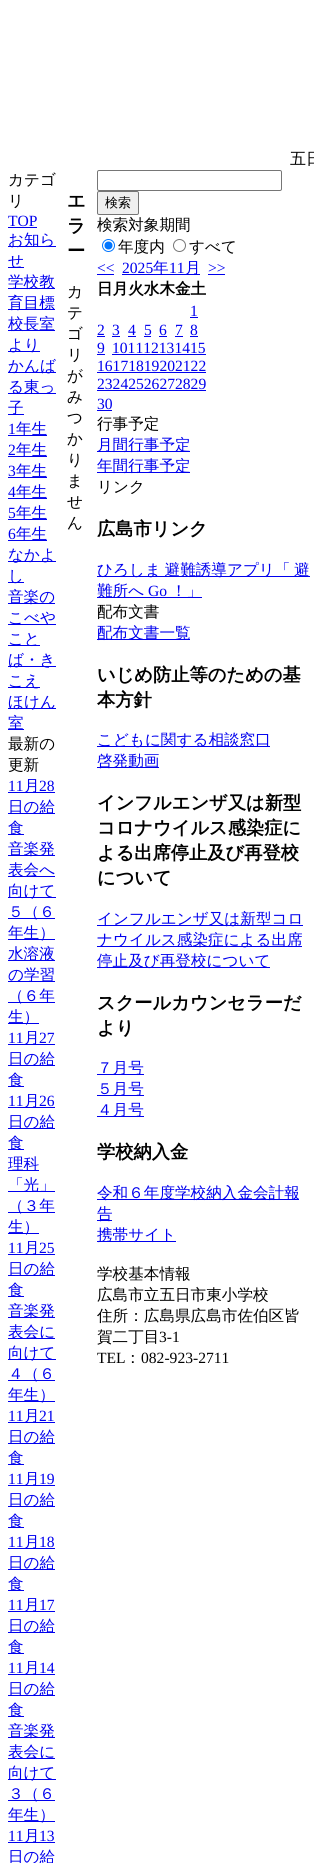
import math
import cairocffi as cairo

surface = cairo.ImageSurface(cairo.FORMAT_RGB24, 322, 1863)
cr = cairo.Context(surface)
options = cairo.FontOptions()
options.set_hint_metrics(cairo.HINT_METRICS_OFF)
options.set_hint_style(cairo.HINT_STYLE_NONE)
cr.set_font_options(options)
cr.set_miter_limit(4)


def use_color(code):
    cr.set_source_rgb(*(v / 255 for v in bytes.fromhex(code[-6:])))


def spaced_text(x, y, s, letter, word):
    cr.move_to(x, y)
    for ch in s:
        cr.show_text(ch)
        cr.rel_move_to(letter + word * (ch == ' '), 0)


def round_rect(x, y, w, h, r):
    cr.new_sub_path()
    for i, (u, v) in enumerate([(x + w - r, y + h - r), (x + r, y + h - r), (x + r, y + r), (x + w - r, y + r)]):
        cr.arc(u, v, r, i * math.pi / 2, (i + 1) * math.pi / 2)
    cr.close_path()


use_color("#ffffff")
cr.paint()
cr.save()
cr.rectangle(8, 149, 306, 21)
cr.clip()
cr.select_font_face("WenQuanYi Zen Hei Medium")
cr.set_font_size(16)
use_color("#000000")
cr.move_to(290, 164)
cr.show_text("五日")
cr.restore()
cr.select_font_face("WenQuanYi Zen Hei Medium")
cr.set_font_size(15.6)
use_color("#000000")
cr.move_to(8, 185)
cr.show_text("カテゴ")
cr.move_to(8, 206)
cr.show_text("リ")
cr.select_font_face("Liberation Serif")
use_color("#0000ee")
cr.move_to(8, 226)
cr.show_text("TOP")
cr.rectangle(8, 227, 29, 1)
cr.fill()
cr.rectangle(8, 246, 48, 1)
cr.fill()
cr.select_font_face("WenQuanYi Zen Hei Medium")
cr.move_to(8, 245)
cr.show_text("お知ら")
cr.rectangle(8, 267, 16, 1)
cr.fill()
cr.move_to(8, 266)
cr.show_text("せ")
cr.rectangle(8, 288, 47, 1)
cr.fill()
cr.move_to(8, 287)
cr.show_text("学校教")
cr.rectangle(8, 309, 47, 1)
cr.fill()
cr.move_to(8, 308)
cr.show_text("育目標")
cr.rectangle(8, 330, 47, 1)
cr.fill()
cr.move_to(8, 329)
cr.show_text("校長室")
cr.rectangle(8, 351, 32, 1)
cr.fill()
cr.move_to(8, 350)
cr.show_text("より")
cr.rectangle(8, 372, 48, 1)
cr.fill()
cr.move_to(8, 371)
cr.show_text("かんば")
cr.rectangle(8, 393, 48, 1)
cr.fill()
cr.move_to(8, 392)
cr.show_text("る東っ")
cr.rectangle(8, 414, 16, 1)
cr.fill()
cr.move_to(8, 413)
cr.show_text("子")
cr.select_font_face("Liberation Serif")
cr.move_to(8, 434)
cr.show_text("1")
cr.rectangle(8, 435, 39, 1)
cr.fill()
cr.select_font_face("WenQuanYi Zen Hei Medium")
cr.move_to(16, 434)
cr.show_text("年生")
cr.select_font_face("Liberation Serif")
cr.move_to(8, 455)
cr.show_text("2")
cr.rectangle(8, 456, 39, 1)
cr.fill()
cr.select_font_face("WenQuanYi Zen Hei Medium")
cr.move_to(16, 455)
cr.show_text("年生")
cr.select_font_face("Liberation Serif")
cr.move_to(8, 476)
cr.show_text("3")
cr.rectangle(8, 477, 39, 1)
cr.fill()
cr.select_font_face("WenQuanYi Zen Hei Medium")
cr.move_to(16, 476)
cr.show_text("年生")
cr.select_font_face("Liberation Serif")
cr.move_to(8, 497)
cr.show_text("4")
cr.rectangle(8, 498, 39, 1)
cr.fill()
cr.select_font_face("WenQuanYi Zen Hei Medium")
cr.move_to(16, 497)
cr.show_text("年生")
cr.select_font_face("Liberation Serif")
cr.move_to(8, 518)
cr.show_text("5")
cr.rectangle(8, 519, 39, 1)
cr.fill()
cr.select_font_face("WenQuanYi Zen Hei Medium")
cr.move_to(16, 518)
cr.show_text("年生")
cr.select_font_face("Liberation Serif")
cr.move_to(8, 539)
cr.show_text("6")
cr.rectangle(8, 540, 39, 1)
cr.fill()
cr.select_font_face("WenQuanYi Zen Hei Medium")
cr.move_to(16, 539)
cr.show_text("年生")
cr.rectangle(8, 561, 48, 1)
cr.fill()
cr.move_to(8, 560)
cr.show_text("なかよ")
cr.rectangle(8, 582, 16, 1)
cr.fill()
cr.move_to(8, 581)
cr.show_text("し")
cr.rectangle(8, 603, 47, 1)
cr.fill()
cr.move_to(8, 602)
cr.show_text("音楽の")
cr.rectangle(8, 624, 48, 1)
cr.fill()
cr.move_to(8, 623)
cr.show_text("こべや")
cr.rectangle(8, 645, 32, 1)
cr.fill()
cr.move_to(8, 644)
cr.show_text("こと")
cr.rectangle(8, 666, 48, 1)
cr.fill()
cr.move_to(8, 665)
cr.show_text("ば・き")
cr.rectangle(8, 687, 32, 1)
cr.fill()
cr.move_to(8, 686)
cr.show_text("こえ")
cr.rectangle(8, 708, 48, 1)
cr.fill()
cr.move_to(8, 707)
cr.show_text("ほけん")
cr.rectangle(8, 729, 16, 1)
cr.fill()
cr.move_to(8, 728)
cr.show_text("室")
use_color("#000000")
cr.move_to(8, 749)
cr.show_text("最新の")
cr.move_to(8, 770)
cr.show_text("更新")
cr.select_font_face("Liberation Serif")
use_color("#0000ee")
cr.move_to(8, 791)
cr.show_text("11")
cr.rectangle(8, 792, 47, 1)
cr.fill()
cr.select_font_face("WenQuanYi Zen Hei Medium")
cr.move_to(24, 791)
cr.show_text("月")
cr.select_font_face("Liberation Serif")
cr.move_to(39, 791)
cr.show_text("28")
cr.rectangle(8, 813, 47, 1)
cr.fill()
cr.select_font_face("WenQuanYi Zen Hei Medium")
cr.move_to(8, 812)
cr.show_text("日の給")
cr.rectangle(8, 834, 16, 1)
cr.fill()
cr.move_to(8, 833)
cr.show_text("食")
cr.rectangle(8, 855, 47, 1)
cr.fill()
cr.move_to(8, 854)
cr.show_text("音楽発")
cr.rectangle(8, 876, 47, 1)
cr.fill()
cr.move_to(8, 875)
cr.show_text("表会へ")
cr.rectangle(8, 897, 48, 1)
cr.fill()
cr.move_to(8, 896)
cr.show_text("向けて")
cr.rectangle(8, 918, 47, 1)
cr.fill()
cr.move_to(8, 917)
cr.show_text("５（６")
cr.rectangle(8, 939, 47, 1)
cr.fill()
cr.move_to(8, 938)
cr.show_text("年生）")
cr.rectangle(8, 960, 47, 1)
cr.fill()
cr.move_to(8, 959)
cr.show_text("水溶液")
cr.rectangle(8, 981, 47, 1)
cr.fill()
cr.move_to(8, 980)
cr.show_text("の学習")
cr.rectangle(8, 1002, 47, 1)
cr.fill()
cr.move_to(8, 1001)
cr.show_text("（６年")
cr.rectangle(8, 1023, 31, 1)
cr.fill()
cr.move_to(8, 1022)
cr.show_text("生）")
cr.select_font_face("Liberation Serif")
cr.move_to(8, 1043)
cr.show_text("11")
cr.rectangle(8, 1044, 47, 1)
cr.fill()
cr.select_font_face("WenQuanYi Zen Hei Medium")
cr.move_to(24, 1043)
cr.show_text("月")
cr.select_font_face("Liberation Serif")
cr.move_to(39, 1043)
cr.show_text("27")
cr.rectangle(8, 1065, 47, 1)
cr.fill()
cr.select_font_face("WenQuanYi Zen Hei Medium")
cr.move_to(8, 1064)
cr.show_text("日の給")
cr.rectangle(8, 1086, 16, 1)
cr.fill()
cr.move_to(8, 1085)
cr.show_text("食")
cr.select_font_face("Liberation Serif")
cr.move_to(8, 1106)
cr.show_text("11")
cr.rectangle(8, 1107, 47, 1)
cr.fill()
cr.select_font_face("WenQuanYi Zen Hei Medium")
cr.move_to(24, 1106)
cr.show_text("月")
cr.select_font_face("Liberation Serif")
cr.move_to(39, 1106)
cr.show_text("26")
cr.rectangle(8, 1128, 47, 1)
cr.fill()
cr.select_font_face("WenQuanYi Zen Hei Medium")
cr.move_to(8, 1127)
cr.show_text("日の給")
cr.rectangle(8, 1149, 16, 1)
cr.fill()
cr.move_to(8, 1148)
cr.show_text("食")
cr.rectangle(8, 1170, 31, 1)
cr.fill()
cr.move_to(8, 1169)
cr.show_text("理科")
cr.rectangle(8, 1191, 47, 1)
cr.fill()
cr.move_to(8, 1190)
cr.show_text("「光」")
cr.rectangle(8, 1212, 47, 1)
cr.fill()
cr.move_to(8, 1211)
cr.show_text("（３年")
cr.rectangle(8, 1233, 31, 1)
cr.fill()
cr.move_to(8, 1232)
cr.show_text("生）")
cr.select_font_face("Liberation Serif")
cr.move_to(8, 1253)
cr.show_text("11")
cr.rectangle(8, 1254, 47, 1)
cr.fill()
cr.select_font_face("WenQuanYi Zen Hei Medium")
cr.move_to(24, 1253)
cr.show_text("月")
cr.select_font_face("Liberation Serif")
cr.move_to(39, 1253)
cr.show_text("25")
cr.rectangle(8, 1275, 47, 1)
cr.fill()
cr.select_font_face("WenQuanYi Zen Hei Medium")
cr.move_to(8, 1274)
cr.show_text("日の給")
cr.rectangle(8, 1296, 16, 1)
cr.fill()
cr.move_to(8, 1295)
cr.show_text("食")
cr.rectangle(8, 1317, 47, 1)
cr.fill()
cr.move_to(8, 1316)
cr.show_text("音楽発")
cr.rectangle(8, 1338, 47, 1)
cr.fill()
cr.move_to(8, 1337)
cr.show_text("表会に")
cr.rectangle(8, 1359, 48, 1)
cr.fill()
cr.move_to(8, 1358)
cr.show_text("向けて")
cr.rectangle(8, 1380, 47, 1)
cr.fill()
cr.move_to(8, 1379)
cr.show_text("４（６")
cr.rectangle(8, 1401, 47, 1)
cr.fill()
cr.move_to(8, 1400)
cr.show_text("年生）")
cr.select_font_face("Liberation Serif")
cr.move_to(8, 1421)
cr.show_text("11")
cr.rectangle(8, 1422, 47, 1)
cr.fill()
cr.select_font_face("WenQuanYi Zen Hei Medium")
cr.move_to(24, 1421)
cr.show_text("月")
cr.select_font_face("Liberation Serif")
cr.move_to(39, 1421)
cr.show_text("21")
cr.rectangle(8, 1443, 47, 1)
cr.fill()
cr.select_font_face("WenQuanYi Zen Hei Medium")
cr.move_to(8, 1442)
cr.show_text("日の給")
cr.rectangle(8, 1464, 16, 1)
cr.fill()
cr.move_to(8, 1463)
cr.show_text("食")
cr.select_font_face("Liberation Serif")
cr.move_to(8, 1484)
cr.show_text("11")
cr.rectangle(8, 1485, 47, 1)
cr.fill()
cr.select_font_face("WenQuanYi Zen Hei Medium")
cr.move_to(24, 1484)
cr.show_text("月")
cr.select_font_face("Liberation Serif")
cr.move_to(39, 1484)
cr.show_text("19")
cr.rectangle(8, 1506, 47, 1)
cr.fill()
cr.select_font_face("WenQuanYi Zen Hei Medium")
cr.move_to(8, 1505)
cr.show_text("日の給")
cr.rectangle(8, 1527, 16, 1)
cr.fill()
cr.move_to(8, 1526)
cr.show_text("食")
cr.select_font_face("Liberation Serif")
cr.move_to(8, 1547)
cr.show_text("11")
cr.rectangle(8, 1548, 47, 1)
cr.fill()
cr.select_font_face("WenQuanYi Zen Hei Medium")
cr.move_to(24, 1547)
cr.show_text("月")
cr.select_font_face("Liberation Serif")
cr.move_to(39, 1547)
cr.show_text("18")
cr.rectangle(8, 1569, 47, 1)
cr.fill()
cr.select_font_face("WenQuanYi Zen Hei Medium")
cr.move_to(8, 1568)
cr.show_text("日の給")
cr.rectangle(8, 1590, 16, 1)
cr.fill()
cr.move_to(8, 1589)
cr.show_text("食")
cr.select_font_face("Liberation Serif")
cr.move_to(8, 1610)
cr.show_text("11")
cr.rectangle(8, 1611, 47, 1)
cr.fill()
cr.select_font_face("WenQuanYi Zen Hei Medium")
cr.move_to(24, 1610)
cr.show_text("月")
cr.select_font_face("Liberation Serif")
cr.move_to(39, 1610)
cr.show_text("17")
cr.rectangle(8, 1632, 47, 1)
cr.fill()
cr.select_font_face("WenQuanYi Zen Hei Medium")
cr.move_to(8, 1631)
cr.show_text("日の給")
cr.rectangle(8, 1653, 16, 1)
cr.fill()
cr.move_to(8, 1652)
cr.show_text("食")
cr.select_font_face("Liberation Serif")
cr.move_to(8, 1673)
cr.show_text("11")
cr.rectangle(8, 1674, 47, 1)
cr.fill()
cr.select_font_face("WenQuanYi Zen Hei Medium")
cr.move_to(24, 1673)
cr.show_text("月")
cr.select_font_face("Liberation Serif")
cr.move_to(39, 1673)
cr.show_text("14")
cr.rectangle(8, 1695, 47, 1)
cr.fill()
cr.select_font_face("WenQuanYi Zen Hei Medium")
cr.move_to(8, 1694)
cr.show_text("日の給")
cr.rectangle(8, 1716, 16, 1)
cr.fill()
cr.move_to(8, 1715)
cr.show_text("食")
cr.rectangle(8, 1737, 47, 1)
cr.fill()
cr.move_to(8, 1736)
cr.show_text("音楽発")
cr.rectangle(8, 1758, 47, 1)
cr.fill()
cr.move_to(8, 1757)
cr.show_text("表会に")
cr.rectangle(8, 1779, 48, 1)
cr.fill()
cr.move_to(8, 1778)
cr.show_text("向けて")
cr.rectangle(8, 1800, 47, 1)
cr.fill()
cr.move_to(8, 1799)
cr.show_text("３（６")
cr.rectangle(8, 1821, 47, 1)
cr.fill()
cr.move_to(8, 1820)
cr.show_text("年生）")
cr.select_font_face("Liberation Serif")
cr.move_to(8, 1841)
cr.show_text("11")
cr.rectangle(8, 1842, 47, 1)
cr.fill()
cr.select_font_face("WenQuanYi Zen Hei Medium")
cr.move_to(24, 1841)
cr.show_text("月")
cr.select_font_face("Liberation Serif")
cr.move_to(39, 1841)
cr.show_text("13")
cr.select_font_face("WenQuanYi Zen Hei Medium")
cr.move_to(8, 1862)
cr.show_text("日の給")
cr.select_font_face("WenQuanYi Zen Hei", cairo.FONT_SLANT_NORMAL, cairo.FONT_WEIGHT_BOLD)
cr.set_font_size(18.25)
use_color("#000000")
cr.move_to(67, 207)
cr.show_text("エ")
cr.move_to(67, 232)
cr.show_text("ラ")
cr.move_to(67, 257)
cr.show_text("ー")
cr.select_font_face("WenQuanYi Zen Hei Medium")
cr.set_font_size(15.6)
cr.move_to(67, 297)
cr.show_text("カ")
cr.move_to(67, 318)
cr.show_text("テ")
cr.move_to(67, 339)
cr.show_text("ゴ")
cr.move_to(67, 360)
cr.show_text("リ")
cr.move_to(67, 381)
cr.show_text("が")
cr.move_to(67, 402)
cr.show_text("み")
cr.move_to(67, 423)
cr.show_text("つ")
cr.move_to(67, 444)
cr.show_text("か")
cr.move_to(67, 465)
cr.show_text("り")
cr.move_to(67, 486)
cr.show_text("ま")
cr.move_to(67, 507)
cr.show_text("せ")
cr.move_to(67, 528)
cr.show_text("ん")
round_rect(97.5, 170.5, 184, 20, 1.5)
use_color("#767676")
cr.set_line_width(1)
cr.stroke()
use_color("#efefef")
round_rect(97.5, 191.5, 41, 23, 1.5)
cr.fill_preserve()
use_color("#767676")
cr.stroke()
cr.set_font_size(13)
use_color("#000000")
cr.move_to(105, 207)
cr.show_text("検索")
cr.set_font_size(15.6)
cr.move_to(97, 230)
cr.show_text("検索対象期間")
cr.new_path()
cr.arc(108.5, 245.5, 6, 0, 2 * math.pi)
use_color("#0075ff")
cr.stroke()
cr.arc(108.5, 245.5, 4, 0, 2 * math.pi)
cr.fill()
use_color("#000000")
cr.move_to(118, 252)
cr.show_text("年度内")
cr.new_path()
cr.arc(179.5, 245.5, 6, 0, 2 * math.pi)
use_color("#767676")
cr.stroke()
use_color("#000000")
cr.move_to(189, 252)
cr.show_text("すべて")
cr.select_font_face("Liberation Serif")
use_color("#0000ee")
cr.move_to(97, 273)
cr.show_text("<<")
cr.rectangle(97, 274, 17, 1)
cr.fill()
cr.move_to(122, 273)
cr.show_text("2025")
cr.rectangle(122, 274, 78, 1)
cr.fill()
cr.select_font_face("WenQuanYi Zen Hei Medium")
cr.move_to(153, 273)
cr.show_text("年")
cr.select_font_face("Liberation Serif")
cr.move_to(169, 273)
cr.show_text("11")
cr.select_font_face("WenQuanYi Zen Hei Medium")
cr.move_to(185, 273)
cr.show_text("月")
cr.select_font_face("Liberation Serif")
cr.move_to(208, 273)
cr.show_text(">>")
cr.rectangle(208, 274, 17, 1)
cr.fill()
cr.select_font_face("WenQuanYi Zen Hei", cairo.FONT_SLANT_NORMAL, cairo.FONT_WEIGHT_BOLD)
use_color("#000000")
cr.move_to(97, 294)
cr.show_text("日月火水木金土")
cr.select_font_face("Liberation Serif")
use_color("#0000ee")
cr.move_to(190, 316)
cr.show_text("1")
cr.rectangle(190, 317, 8, 1)
cr.fill()
cr.move_to(97, 335)
cr.show_text("2")
cr.rectangle(97, 336, 8, 1)
cr.fill()
cr.move_to(112, 335)
cr.show_text("3")
cr.rectangle(112, 336, 8, 1)
cr.fill()
cr.move_to(128, 335)
cr.show_text("4")
cr.rectangle(128, 336, 8, 1)
cr.fill()
cr.move_to(144, 335)
cr.show_text("5")
cr.rectangle(144, 336, 7, 1)
cr.fill()
cr.move_to(159, 335)
cr.show_text("6")
cr.rectangle(159, 336, 8, 1)
cr.fill()
cr.move_to(175, 335)
cr.show_text("7")
cr.rectangle(175, 336, 8, 1)
cr.fill()
cr.move_to(190, 335)
cr.show_text("8")
cr.rectangle(190, 336, 8, 1)
cr.fill()
cr.move_to(97, 353)
cr.show_text("9")
cr.rectangle(97, 354, 8, 1)
cr.fill()
cr.move_to(112, 353)
cr.show_text("101112131415")
cr.rectangle(112, 354, 94, 1)
cr.fill()
cr.move_to(97, 371)
cr.show_text("16171819202122")
cr.rectangle(97, 372, 109, 1)
cr.fill()
cr.move_to(97, 389)
cr.show_text("23242526272829")
cr.rectangle(97, 390, 109, 1)
cr.fill()
cr.move_to(97, 409)
cr.show_text("30")
cr.rectangle(97, 410, 15, 1)
cr.fill()
cr.select_font_face("WenQuanYi Zen Hei Medium")
use_color("#000000")
cr.move_to(97, 429)
cr.show_text("行事予定")
use_color("#0000ee")
cr.rectangle(97, 451, 93, 1)
cr.fill()
cr.move_to(97, 450)
cr.show_text("月間行事予定")
cr.rectangle(97, 472, 93, 1)
cr.fill()
cr.move_to(97, 471)
cr.show_text("年間行事予定")
use_color("#000000")
cr.move_to(97, 492)
cr.show_text("リンク")
cr.select_font_face("WenQuanYi Zen Hei", cairo.FONT_SLANT_NORMAL, cairo.FONT_WEIGHT_BOLD)
cr.set_font_size(18.25)
cr.move_to(97, 535)
cr.show_text("広島市リンク")
use_color("#0000ee")
cr.rectangle(97, 576, 213, 1)
cr.fill()
cr.select_font_face("WenQuanYi Zen Hei Medium")
cr.set_font_size(15.6)
spaced_text(97, 575, "ひろしま 避難誘導アプリ「 避", 0, -1)
cr.rectangle(97, 597, 105, 1)
cr.fill()
cr.move_to(97, 596)
cr.show_text("難所へ")
cr.select_font_face("Liberation Serif")
cr.move_to(148, 596)
cr.show_text("Go")
cr.select_font_face("WenQuanYi Zen Hei Medium")
cr.move_to(171, 596)
cr.show_text("！」")
use_color("#000000")
cr.move_to(97, 617)
cr.show_text("配布文書")
use_color("#0000ee")
cr.rectangle(97, 639, 93, 1)
cr.fill()
cr.move_to(97, 638)
cr.show_text("配布文書一覧")
cr.select_font_face("WenQuanYi Zen Hei", cairo.FONT_SLANT_NORMAL, cairo.FONT_WEIGHT_BOLD)
cr.set_font_size(18.25)
use_color("#000000")
cr.move_to(97, 681)
cr.show_text("いじめ防止等のための基")
cr.move_to(97, 706)
cr.show_text("本方針")
use_color("#0000ee")
cr.rectangle(97, 746, 173, 1)
cr.fill()
cr.select_font_face("WenQuanYi Zen Hei Medium")
cr.set_font_size(15.6)
cr.move_to(97, 745)
cr.show_text("こどもに関する相談窓口")
cr.rectangle(97, 767, 62, 1)
cr.fill()
cr.move_to(97, 766)
cr.show_text("啓発動画")
cr.select_font_face("WenQuanYi Zen Hei", cairo.FONT_SLANT_NORMAL, cairo.FONT_WEIGHT_BOLD)
cr.set_font_size(18.25)
use_color("#000000")
cr.move_to(97, 809)
cr.show_text("インフルエンザ又は新型")
cr.move_to(97, 834)
cr.show_text("コロナウイルス感染症に")
cr.move_to(97, 859)
cr.show_text("よる出席停止及び再登校")
cr.move_to(97, 884)
cr.show_text("について")
use_color("#0000ee")
cr.rectangle(97, 925, 206, 1)
cr.fill()
cr.select_font_face("WenQuanYi Zen Hei Medium")
cr.set_font_size(15.6)
cr.move_to(97, 924)
cr.show_text("インフルエンザ又は新型コロ")
cr.rectangle(97, 946, 205, 1)
cr.fill()
cr.move_to(97, 945)
cr.show_text("ナウイルス感染症による出席")
cr.rectangle(97, 967, 173, 1)
cr.fill()
cr.move_to(97, 966)
cr.show_text("停止及び再登校について")
cr.select_font_face("WenQuanYi Zen Hei", cairo.FONT_SLANT_NORMAL, cairo.FONT_WEIGHT_BOLD)
cr.set_font_size(18.25)
use_color("#000000")
cr.move_to(97, 1009)
cr.show_text("スクールカウンセラーだ")
cr.move_to(97, 1034)
cr.show_text("より")
use_color("#0000ee")
cr.rectangle(97, 1074, 47, 1)
cr.fill()
cr.select_font_face("WenQuanYi Zen Hei Medium")
cr.set_font_size(15.6)
cr.move_to(97, 1073)
cr.show_text("７月号")
cr.rectangle(97, 1095, 47, 1)
cr.fill()
cr.move_to(97, 1094)
cr.show_text("５月号")
cr.rectangle(97, 1116, 47, 1)
cr.fill()
cr.move_to(97, 1115)
cr.show_text("４月号")
cr.select_font_face("WenQuanYi Zen Hei", cairo.FONT_SLANT_NORMAL, cairo.FONT_WEIGHT_BOLD)
cr.set_font_size(18.25)
use_color("#000000")
cr.move_to(97, 1158)
cr.show_text("学校納入金")
use_color("#0000ee")
cr.rectangle(97, 1199, 202, 1)
cr.fill()
cr.select_font_face("WenQuanYi Zen Hei Medium")
cr.set_font_size(15.6)
cr.move_to(97, 1198)
cr.show_text("令和６年度学校納入金会計報")
cr.rectangle(97, 1220, 15, 1)
cr.fill()
cr.move_to(97, 1219)
cr.show_text("告")
cr.rectangle(97, 1241, 79, 1)
cr.fill()
cr.move_to(97, 1240)
cr.show_text("携帯サイト")
use_color("#000000")
cr.move_to(97, 1279)
cr.show_text("学校基本情報")
cr.move_to(97, 1300)
cr.show_text("広島市立五日市東小学校")
cr.move_to(97, 1321)
cr.show_text("住所：広島県広島市佐伯区皆")
cr.move_to(97, 1342)
cr.show_text("賀二丁目")
cr.select_font_face("Liberation Serif")
cr.move_to(159, 1342)
cr.show_text("3-1")
cr.move_to(97, 1363)
cr.show_text("TEL")
cr.select_font_face("WenQuanYi Zen Hei Medium")
cr.move_to(125, 1363)
cr.show_text("：")
cr.select_font_face("Liberation Serif")
cr.move_to(141, 1363)
cr.show_text("082-923-2711")
surface.write_to_png("result.png")
